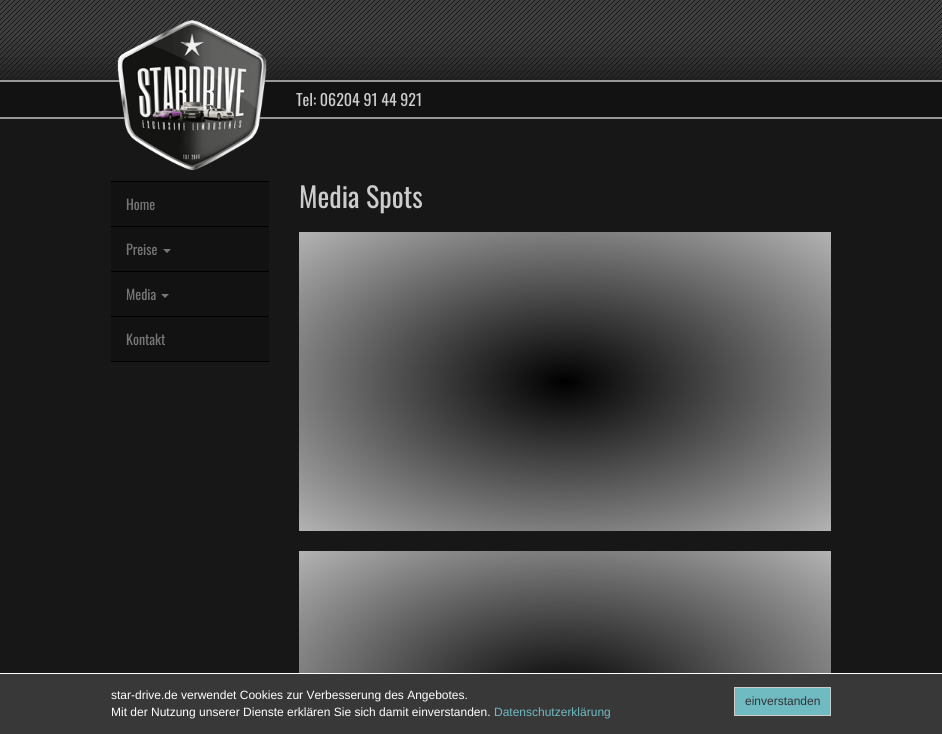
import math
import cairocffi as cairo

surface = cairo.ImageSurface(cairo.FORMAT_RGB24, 942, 734)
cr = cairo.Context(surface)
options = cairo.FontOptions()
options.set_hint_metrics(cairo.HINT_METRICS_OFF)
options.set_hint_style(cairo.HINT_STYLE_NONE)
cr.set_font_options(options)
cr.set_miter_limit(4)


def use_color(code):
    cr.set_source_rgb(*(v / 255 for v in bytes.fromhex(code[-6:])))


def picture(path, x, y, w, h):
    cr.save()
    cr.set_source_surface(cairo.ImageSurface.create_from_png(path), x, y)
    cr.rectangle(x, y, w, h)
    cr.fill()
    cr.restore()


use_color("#171717")
cr.paint()
picture("img1.png", 0, 0, 942, 80)
use_color("#121212")
cr.rectangle(0, 82, 942, 35)
cr.fill()
use_color("#979797")
cr.rectangle(0, 80, 942, 2)
cr.fill()
cr.rectangle(0, 117, 942, 2)
cr.fill()
picture("img2.png", 117, 20, 150, 150)
cr.select_font_face("Oswald")
cr.set_font_size(16)
use_color("#cccccc")
cr.move_to(296, 106)
cr.show_text("Tel: 06204 91 44 921")
use_color("#121212")
cr.rectangle(111, 182, 158, 179)
cr.fill()
use_color("#000000")
cr.rectangle(111, 181, 158, 1)
cr.fill()
cr.rectangle(111, 226, 158, 1)
cr.fill()
cr.set_font_size(14)
use_color("#777777")
cr.move_to(126, 210)
cr.show_text("Home")
use_color("#000000")
cr.rectangle(111, 271, 158, 1)
cr.fill()
use_color("#777777")
cr.move_to(126, 255)
cr.show_text("Preise")
cr.new_path()
cr.move_to(163, 249)
cr.line_to(171, 249)
cr.line_to(167, 253)
cr.close_path()
cr.fill()
use_color("#000000")
cr.rectangle(111, 316, 158, 1)
cr.fill()
use_color("#777777")
cr.move_to(126, 300)
cr.show_text("Media")
cr.new_path()
cr.move_to(161, 294)
cr.line_to(169, 294)
cr.line_to(165, 298)
cr.close_path()
cr.fill()
use_color("#000000")
cr.rectangle(111, 361, 158, 1)
cr.fill()
use_color("#777777")
cr.move_to(126, 345)
cr.show_text("Kontakt")
cr.set_font_size(28)
use_color("#cccccc")
cr.move_to(299, 208)
cr.show_text("Media Spots")
gradient = cairo.RadialGradient(0, 0, 0, 0, 0, 1)
gradient.set_matrix(cairo.Matrix(1 / 376, 0, 0, 1 / 211, -1 * 565 / 376, -1 * 382 / 211))
gradient.add_color_stop_rgba(0, 0, 0, 0, 1)
gradient.add_color_stop_rgba(1, 0.702, 0.702, 0.702, 1)
cr.set_source(gradient)
cr.rectangle(299, 232, 532, 299)
cr.fill()
gradient = cairo.RadialGradient(0, 0, 0, 0, 0, 1)
gradient.set_matrix(cairo.Matrix(1 / 376, 0, 0, 1 / 212, -1 * 565 / 376, -1 * 701 / 212))
gradient.add_color_stop_rgba(0, 0, 0, 0, 1)
gradient.add_color_stop_rgba(1, 0.702, 0.702, 0.702, 1)
cr.set_source(gradient)
cr.rectangle(299, 551, 532, 122)
cr.fill()
use_color("#383838")
cr.rectangle(0, 674, 942, 60)
cr.fill()
use_color("#ffffff")
cr.rectangle(0, 673, 942, 1)
cr.fill()
cr.select_font_face("Liberation Sans")
cr.set_font_size(12)
cr.move_to(111, 699)
cr.show_text("star-drive.de verwendet Cookies zur Verbesserung des Angebotes.")
cr.move_to(111, 716)
cr.show_text("Mit der Nutzung unserer Dienste erklären Sie sich damit einverstanden.")
use_color("#70bac2")
cr.move_to(494, 716)
cr.show_text("Datenschutzerklärung")
cr.rectangle(734.5, 687.5, 96, 28)
cr.fill_preserve()
use_color("#cccccc")
cr.set_line_width(1)
cr.stroke()
use_color("#333333")
cr.move_to(745, 705)
cr.show_text("einverstanden")
surface.write_to_png("result.png")
